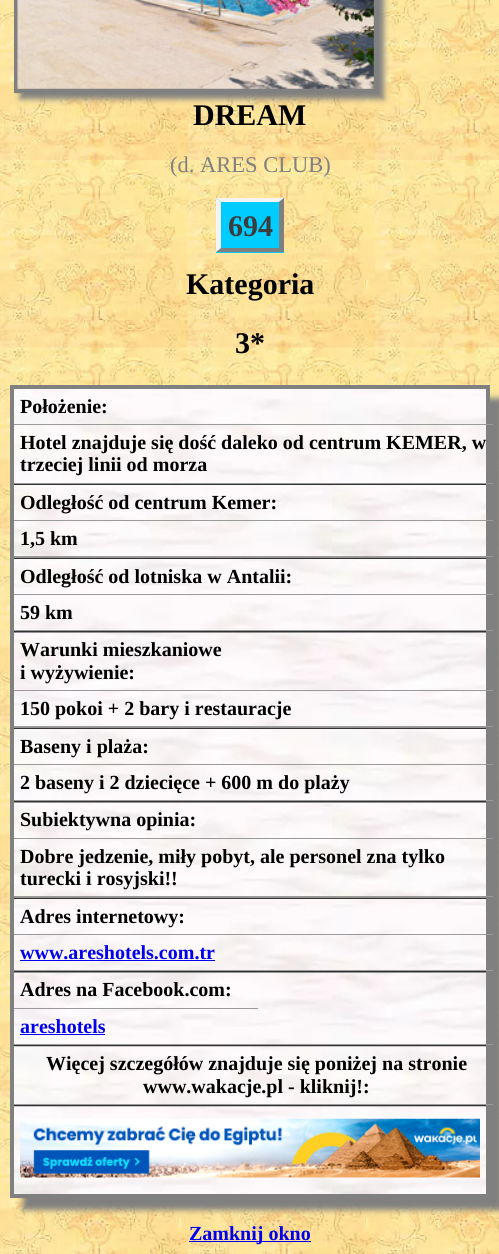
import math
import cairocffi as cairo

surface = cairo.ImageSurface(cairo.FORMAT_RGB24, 499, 1254)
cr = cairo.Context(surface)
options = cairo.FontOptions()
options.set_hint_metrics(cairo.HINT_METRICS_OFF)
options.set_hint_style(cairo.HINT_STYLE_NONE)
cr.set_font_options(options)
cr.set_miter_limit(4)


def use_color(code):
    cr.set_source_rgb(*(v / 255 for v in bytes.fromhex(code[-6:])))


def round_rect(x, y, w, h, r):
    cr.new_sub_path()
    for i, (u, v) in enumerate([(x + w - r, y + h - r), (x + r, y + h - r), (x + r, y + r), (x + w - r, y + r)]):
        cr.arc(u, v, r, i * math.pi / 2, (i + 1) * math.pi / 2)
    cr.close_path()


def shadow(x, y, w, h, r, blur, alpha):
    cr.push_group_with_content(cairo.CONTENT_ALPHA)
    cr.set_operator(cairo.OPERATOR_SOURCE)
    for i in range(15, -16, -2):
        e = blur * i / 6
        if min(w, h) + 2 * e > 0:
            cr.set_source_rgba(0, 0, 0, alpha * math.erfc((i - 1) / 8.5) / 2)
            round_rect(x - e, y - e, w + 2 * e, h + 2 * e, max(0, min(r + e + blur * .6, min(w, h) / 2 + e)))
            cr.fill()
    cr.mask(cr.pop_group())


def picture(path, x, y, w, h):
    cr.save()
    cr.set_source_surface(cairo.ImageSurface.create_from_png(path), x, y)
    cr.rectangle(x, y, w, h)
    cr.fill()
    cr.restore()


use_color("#ffffff")
cr.paint()
picture("img1.png", 0, 0, 499, 1254)
use_color("#808080")
shadow(20, -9, 364, 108, 0, 3, 1)
cr.rectangle(16, -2, 360, 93)
use_color("#808080")
cr.set_line_width(4)
cr.stroke()
picture("img2.png", 17, 0, 357, 89)
cr.select_font_face("Liberation Serif", cairo.FONT_SLANT_NORMAL, cairo.FONT_WEIGHT_BOLD)
cr.set_font_size(30)
use_color("#000000")
cr.move_to(193, 125)
cr.show_text("DREAM")
cr.select_font_face("Liberation Serif")
cr.set_font_size(22.5)
use_color("#808080")
cr.move_to(170, 172)
cr.show_text("(d. ARES CLUB)")
use_color("#00ccff")
cr.rectangle(216, 198, 68, 55)
cr.fill()
cr.select_font_face("Liberation Serif", cairo.FONT_SLANT_NORMAL, cairo.FONT_WEIGHT_BOLD)
cr.set_font_size(30)
use_color("#3c3c3c")
cr.move_to(228, 236)
cr.show_text("694")
use_color("#f4f4f4")
cr.new_path()
cr.move_to(216, 198)
cr.line_to(284, 198)
cr.line_to(279, 202)
cr.line_to(221, 202)
cr.close_path()
cr.fill()
use_color("#7f7f7f")
cr.new_path()
cr.move_to(284, 198)
cr.line_to(284, 252)
cr.line_to(279, 248)
cr.line_to(279, 202)
cr.close_path()
cr.fill()
cr.new_path()
cr.move_to(284, 252)
cr.line_to(216, 252)
cr.line_to(221, 248)
cr.line_to(279, 248)
cr.close_path()
cr.fill()
use_color("#f4f4f4")
cr.new_path()
cr.move_to(216, 252)
cr.line_to(216, 198)
cr.line_to(221, 202)
cr.line_to(221, 248)
cr.close_path()
cr.fill()
use_color("#000000")
cr.move_to(186, 294)
cr.show_text("Kategoria")
cr.move_to(235, 353)
cr.show_text("3*")
use_color("#808080")
shadow(23, 398, 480, 812, 0, 3, 1)
picture("img3.png", 14, 389, 472, 805)
use_color("#808080")
cr.rectangle(10, 385, 480, 4)
cr.fill()
use_color("#333333")
cr.rectangle(11, 484, 478, 1)
cr.fill()
cr.rectangle(11, 558, 478, 1)
cr.fill()
cr.rectangle(11, 631, 478, 1)
cr.fill()
cr.rectangle(11, 728, 478, 1)
cr.fill()
cr.rectangle(11, 801, 478, 1)
cr.fill()
cr.rectangle(11, 898, 478, 1)
cr.fill()
cr.rectangle(11, 971, 478, 1)
cr.fill()
cr.rectangle(11, 1045, 478, 1)
cr.fill()
cr.rectangle(11, 1105, 478, 1)
cr.fill()
use_color("#808080")
cr.rectangle(486, 385, 4, 721)
cr.fill()
cr.rectangle(10, 1194, 19, 4)
cr.fill()
cr.rectangle(10, 385, 4, 813)
cr.fill()
use_color("#9a9a9a")
cr.rectangle(14, 424, 479, 1)
cr.fill()
cr.set_font_size(20)
use_color("#000000")
cr.move_to(20, 413)
cr.show_text("Położenie:")
use_color("#9a9a9a")
cr.rectangle(14, 483, 479, 1)
cr.fill()
use_color("#000000")
cr.move_to(20, 449)
cr.show_text("Hotel znajduje się dość daleko od centrum KEMER, w")
cr.move_to(20, 471)
cr.show_text("trzeciej linii od morza")
use_color("#9a9a9a")
cr.rectangle(14, 520, 479, 1)
cr.fill()
use_color("#000000")
cr.move_to(20, 509)
cr.show_text("Odległość od centrum Kemer:")
use_color("#9a9a9a")
cr.rectangle(14, 556, 479, 1)
cr.fill()
use_color("#000000")
cr.move_to(20, 545)
cr.show_text("1,5 km")
use_color("#9a9a9a")
cr.rectangle(14, 594, 479, 1)
cr.fill()
use_color("#000000")
cr.move_to(20, 583)
cr.show_text("Odległość od lotniska w Antalii:")
use_color("#9a9a9a")
cr.rectangle(14, 630, 479, 1)
cr.fill()
use_color("#000000")
cr.move_to(20, 619)
cr.show_text("59 km")
use_color("#9a9a9a")
cr.rectangle(14, 690, 479, 1)
cr.fill()
use_color("#000000")
cr.move_to(20, 656)
cr.show_text("Warunki mieszkaniowe")
cr.move_to(20, 679)
cr.show_text("i wyżywienie:")
use_color("#9a9a9a")
cr.rectangle(14, 726, 479, 1)
cr.fill()
use_color("#000000")
cr.move_to(20, 715)
cr.show_text("150 pokoi + 2 bary i restauracje")
use_color("#9a9a9a")
cr.rectangle(14, 764, 479, 1)
cr.fill()
use_color("#000000")
cr.move_to(20, 753)
cr.show_text("Baseny i plaża:")
use_color("#9a9a9a")
cr.rectangle(14, 800, 479, 1)
cr.fill()
use_color("#000000")
cr.move_to(20, 789)
cr.show_text("2 baseny i 2 dziecięce + 600 m do plaży")
use_color("#9a9a9a")
cr.rectangle(14, 838, 479, 1)
cr.fill()
use_color("#000000")
cr.move_to(20, 826)
cr.show_text("Subiektywna opinia:")
use_color("#9a9a9a")
cr.rectangle(14, 896, 479, 1)
cr.fill()
use_color("#000000")
cr.move_to(20, 863)
cr.show_text("Dobre jedzenie, miły pobyt, ale personel zna tylko")
cr.move_to(20, 885)
cr.show_text("turecki i rosyjski!!")
use_color("#9a9a9a")
cr.rectangle(14, 934, 479, 1)
cr.fill()
use_color("#000000")
cr.move_to(20, 923)
cr.show_text("Adres internetowy:")
use_color("#9a9a9a")
cr.rectangle(14, 970, 479, 1)
cr.fill()
use_color("#0000ee")
cr.move_to(20, 959)
cr.show_text("www.areshotels.com.tr")
cr.rectangle(20, 960, 195, 1)
cr.fill()
use_color("#9a9a9a")
cr.rectangle(14, 1008, 244, 1)
cr.fill()
use_color("#000000")
cr.move_to(20, 996)
cr.show_text("Adres na Facebook.com:")
use_color("#9a9a9a")
cr.rectangle(14, 1044, 479, 1)
cr.fill()
use_color("#0000ee")
cr.move_to(20, 1033)
cr.show_text("areshotels")
cr.rectangle(20, 1034, 85, 1)
cr.fill()
use_color("#9a9a9a")
cr.rectangle(14, 1104, 479, 1)
cr.fill()
use_color("#000000")
cr.move_to(46, 1070)
cr.show_text("Więcej szczegółów znajduje się poniżej na stronie")
cr.move_to(143, 1093)
cr.show_text("www.wakacje.pl - kliknij!:")
picture("img4.png", 20, 1118, 460, 60)
use_color("#0000ee")
cr.rectangle(189, 1241, 122, 1)
cr.fill()
cr.move_to(189, 1240)
cr.show_text("Zamknij okno")
surface.write_to_png("result.png")
